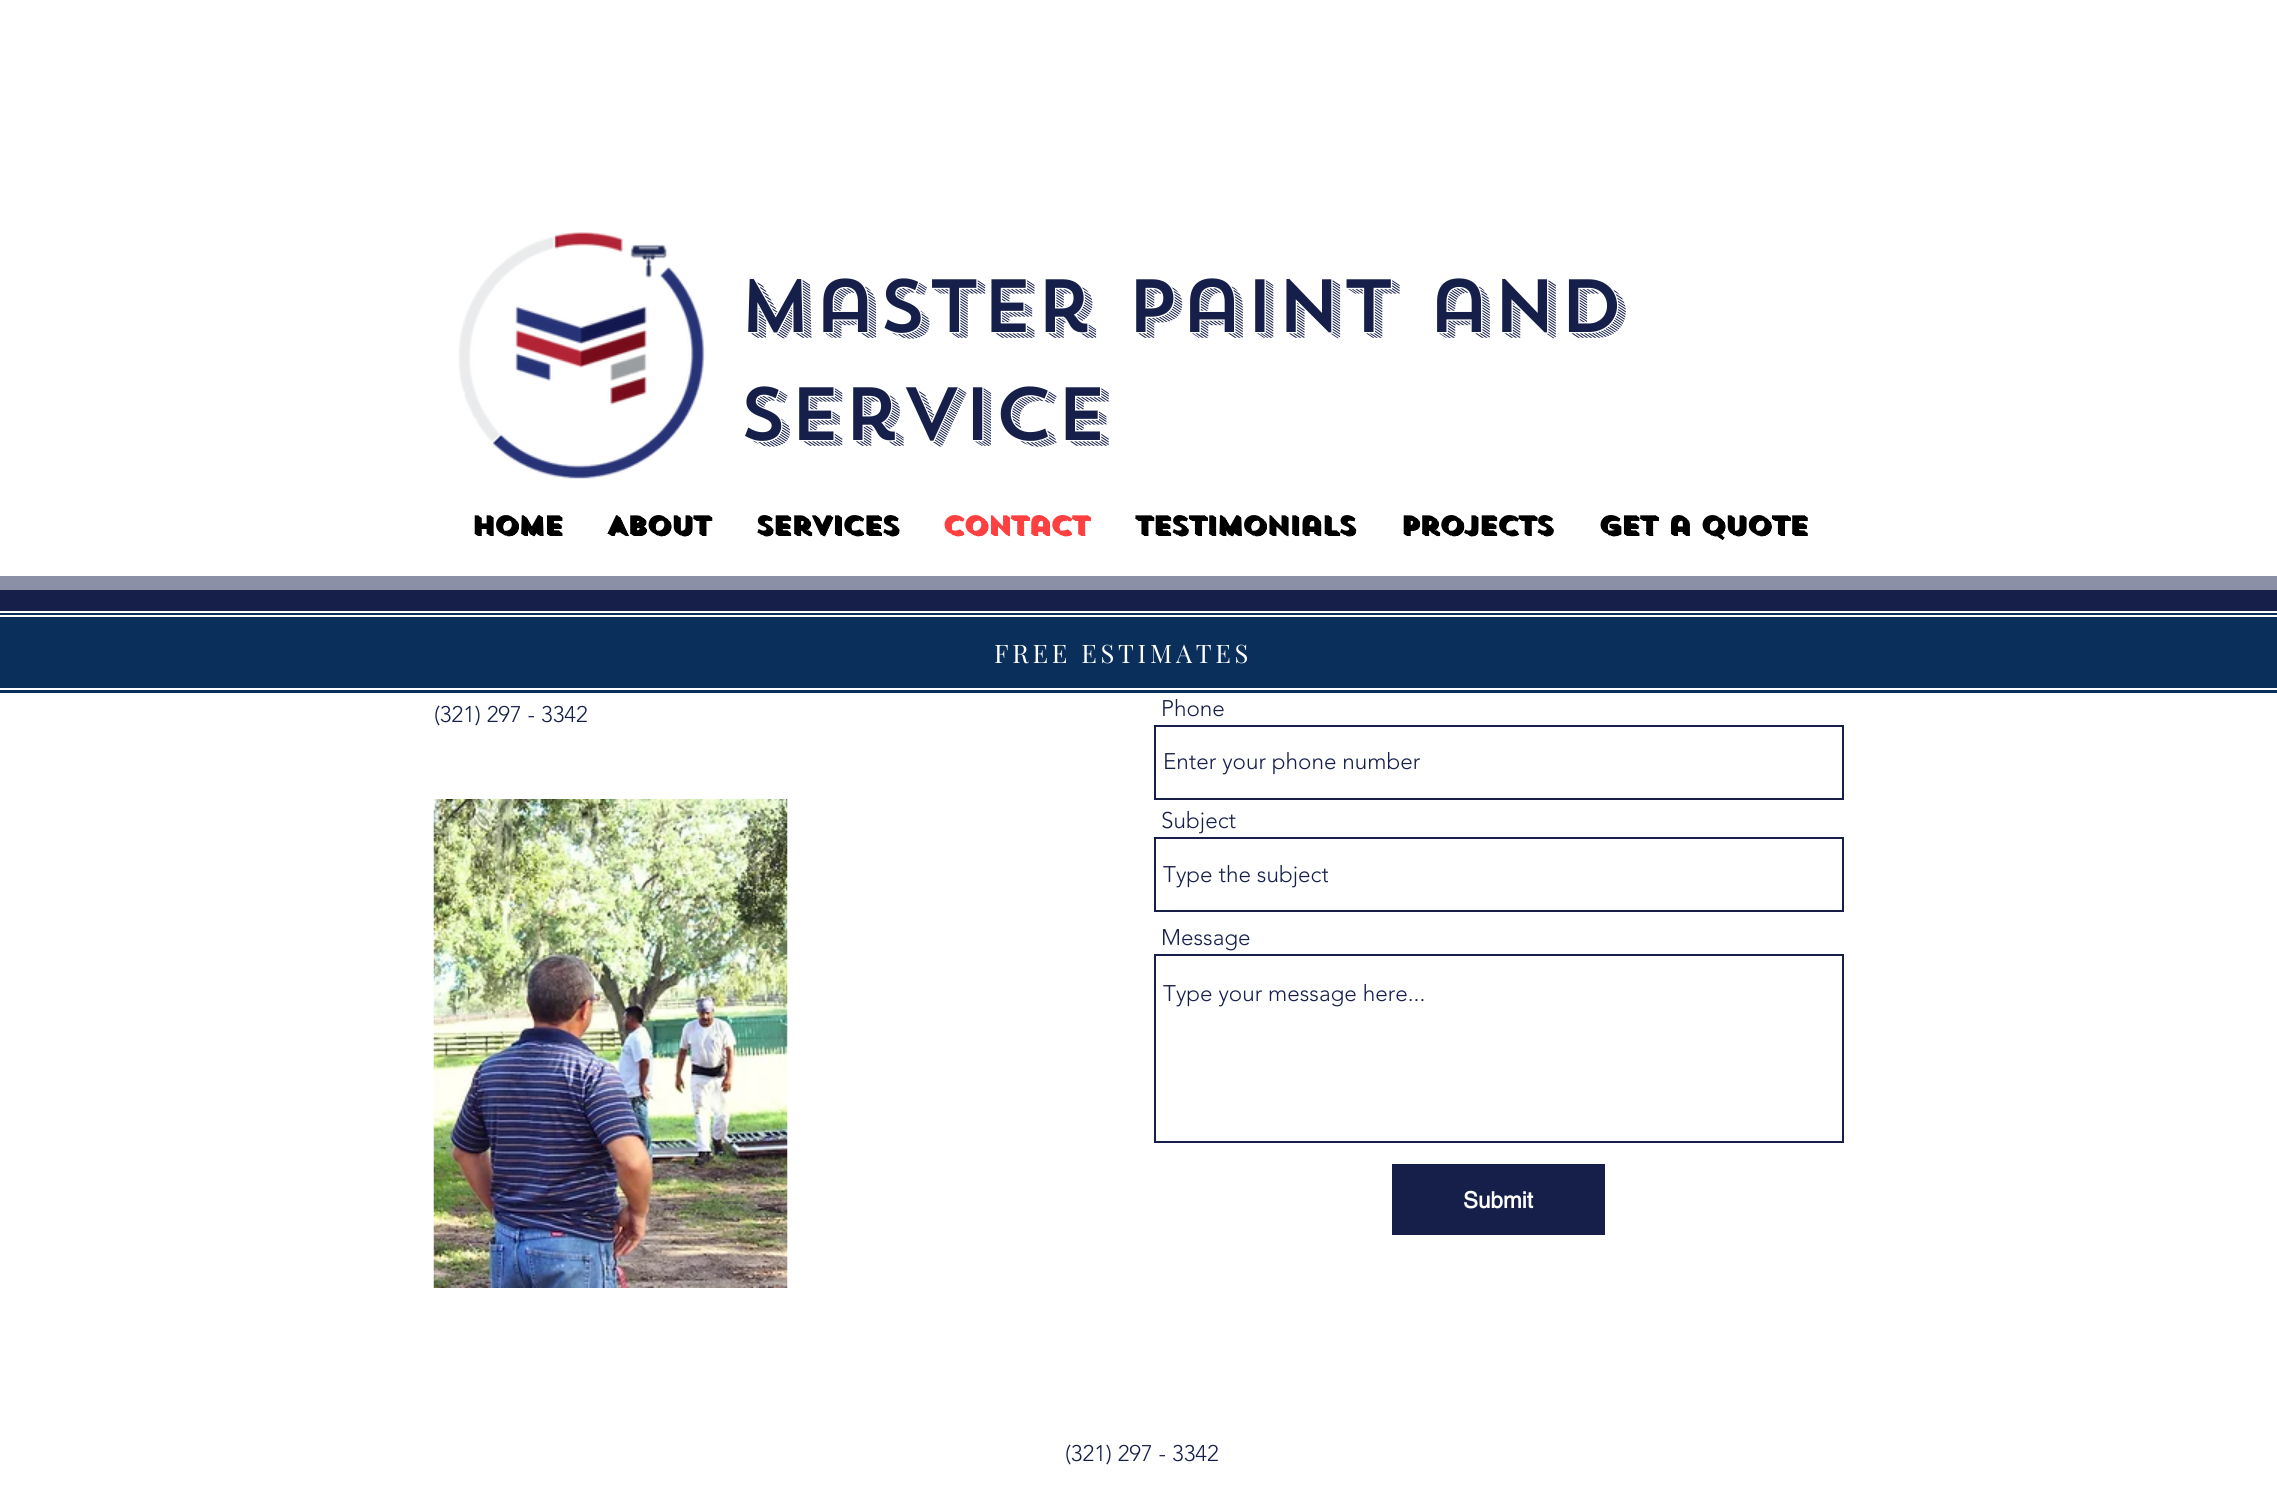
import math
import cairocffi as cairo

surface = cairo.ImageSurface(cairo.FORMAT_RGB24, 2277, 1489)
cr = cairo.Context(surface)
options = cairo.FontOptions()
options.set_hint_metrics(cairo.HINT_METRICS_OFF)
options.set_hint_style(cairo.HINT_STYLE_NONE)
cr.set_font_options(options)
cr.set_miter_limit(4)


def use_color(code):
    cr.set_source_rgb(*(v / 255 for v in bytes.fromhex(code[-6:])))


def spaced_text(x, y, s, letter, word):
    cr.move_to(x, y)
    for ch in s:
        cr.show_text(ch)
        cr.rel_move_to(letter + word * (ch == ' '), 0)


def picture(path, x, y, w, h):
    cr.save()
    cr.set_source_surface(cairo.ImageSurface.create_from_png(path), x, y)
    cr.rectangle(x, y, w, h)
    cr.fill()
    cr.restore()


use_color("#ffffff")
cr.paint()
picture("img1.png", 458, 232, 247, 247)
cr.select_font_face("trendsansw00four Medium")
cr.set_font_size(75)
use_color("#161f4a")
cr.move_to(738, 332)
cr.show_text("Master Paint and")
cr.move_to(738, 440)
cr.show_text("Service")
cr.select_font_face("trendsansw00four", cairo.FONT_SLANT_NORMAL, cairo.FONT_WEIGHT_BOLD)
cr.set_font_size(25.5)
use_color("#000000")
cr.move_to(471, 534)
cr.show_text("Home")
cr.move_to(606, 534)
cr.show_text("About")
cr.move_to(755, 534)
cr.show_text("Services")
use_color("#ff4040")
cr.move_to(942, 534)
cr.show_text("Contact")
use_color("#000000")
cr.move_to(1134, 534)
cr.show_text("Testimonials")
cr.move_to(1400, 534)
cr.show_text("Projects")
cr.move_to(1598, 534)
cr.show_text("Get a Quote")
use_color("#8b90a6")
cr.rectangle(0, 576, 2277, 14)
cr.fill()
use_color("#161f4a")
cr.rectangle(0, 590, 2277, 21)
cr.fill()
use_color("#0b2f5b")
cr.rectangle(0, 613, 2277, 80)
cr.fill()
cr.rectangle(-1, 616, 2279, 73)
use_color("#ffffff")
cr.stroke()
cr.select_font_face("Playfair Display")
spaced_text(994, 663, "FREE ESTIMATES", 3.75, 0)
cr.select_font_face("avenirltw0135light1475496 Light")
cr.set_font_size(22.5)
use_color("#161f4a")
cr.move_to(434, 722)
cr.show_text("(321) 297 - 3342")
cr.move_to(1161, 716)
cr.show_text("Phone")
cr.rectangle(1155, 726, 688, 73)
cr.stroke()
cr.move_to(1163, 769)
cr.show_text("Enter your phone number")
cr.move_to(1161, 828)
cr.show_text("Subject")
cr.rectangle(1155, 838, 688, 73)
cr.stroke()
cr.move_to(1163, 882)
cr.show_text("Type the subject")
cr.move_to(1161, 945)
cr.show_text("Message")
cr.rectangle(1155, 955, 688, 187)
cr.stroke()
cr.move_to(1163, 1001)
cr.show_text("Type your message here...")
cr.rectangle(1392, 1164, 213, 71)
cr.fill()
cr.select_font_face("helvetica", cairo.FONT_SLANT_NORMAL, cairo.FONT_WEIGHT_BOLD)
use_color("#ffffff")
cr.move_to(1463, 1208)
cr.show_text("Submit")
picture("img2.png", 433, 799, 355, 489)
cr.select_font_face("avenirltw0135light1475496 Light")
use_color("#161f4a")
cr.move_to(1065, 1461)
cr.show_text("(321) 297 - 3342")
surface.write_to_png("result.png")
